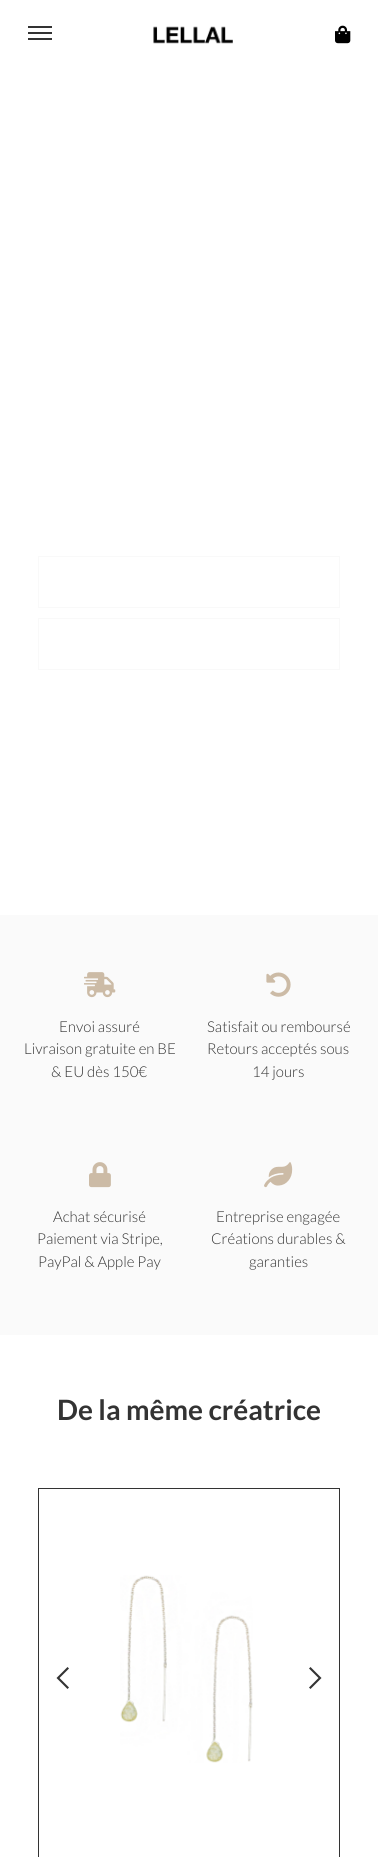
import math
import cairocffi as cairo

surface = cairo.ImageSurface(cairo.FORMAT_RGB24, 378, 1857)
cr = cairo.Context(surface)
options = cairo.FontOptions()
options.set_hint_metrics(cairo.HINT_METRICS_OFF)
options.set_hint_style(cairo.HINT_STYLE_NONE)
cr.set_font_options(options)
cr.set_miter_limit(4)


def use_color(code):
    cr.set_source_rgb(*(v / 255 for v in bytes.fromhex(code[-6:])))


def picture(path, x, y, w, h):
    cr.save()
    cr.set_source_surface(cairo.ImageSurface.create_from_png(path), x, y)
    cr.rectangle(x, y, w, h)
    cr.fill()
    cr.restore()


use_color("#ffffff")
cr.paint()
picture("img1.png", 24, 0, 330, 5)
cr.rectangle(38.5, 556.5, 301, 51)
use_color("#333333")
cr.set_line_width(1)
cr.stroke()
cr.rectangle(38.5, 618.5, 301, 51)
cr.stroke()
cr.set_source_rgba(1, 1, 1, 0.97)
cr.rectangle(24, 0, 330, 670)
cr.fill()
use_color("#333333")
cr.rectangle(28, 26, 24, 2)
cr.fill()
cr.rectangle(28, 32, 24, 2)
cr.fill()
cr.rectangle(28, 38, 24, 2)
cr.fill()
picture("img2.png", 153, 26, 80, 18)
picture("img3.png", 335, 25, 16, 19)
use_color("#fafafa")
cr.rectangle(0, 915, 378, 420)
cr.fill()
picture("img4.png", 84, 972, 32, 26)
cr.select_font_face("Lato Light")
cr.set_font_size(15)
use_color("#333333")
cr.move_to(59, 1032)
cr.show_text("Envoi assuré")
cr.move_to(24, 1054)
cr.show_text("Livraison gratuite en BE")
cr.move_to(51, 1077)
cr.show_text("& EU dès 150€")
picture("img5.png", 266, 972, 25, 25)
cr.move_to(207, 1032)
cr.show_text("Satisfait ou remboursé")
cr.move_to(207, 1054)
cr.show_text("Retours acceptés sous")
cr.move_to(252, 1077)
cr.show_text("14 jours")
picture("img6.png", 89, 1162, 22, 26)
cr.move_to(53, 1222)
cr.show_text("Achat sécurisé")
cr.move_to(37, 1244)
cr.show_text("Paiement via Stripe,")
cr.move_to(38, 1267)
cr.show_text("PayPal & Apple Pay")
picture("img7.png", 264, 1162, 29, 26)
cr.move_to(216, 1222)
cr.show_text("Entreprise engagée")
cr.move_to(211, 1244)
cr.show_text("Créations durables &")
cr.move_to(249, 1267)
cr.show_text("garanties")
cr.select_font_face("Lato", cairo.FONT_SLANT_NORMAL, cairo.FONT_WEIGHT_BOLD)
cr.set_font_size(28)
cr.move_to(57, 1420)
cr.show_text("De la même créatrice")
cr.rectangle(38.5, 1488.5, 301, 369)
cr.stroke()
cr.new_path()
cr.move_to(56.5, 1678)
cr.line_to(67.5, 1667)
cr.line_to(69, 1668.5)
cr.line_to(59.5, 1678)
cr.line_to(69, 1687.5)
cr.line_to(67.5, 1689)
cr.close_path()
cr.fill()
picture("img8.png", 120, 1575, 133, 188)
cr.new_path()
cr.move_to(321.5, 1678)
cr.line_to(310.5, 1667)
cr.line_to(309, 1668.5)
cr.line_to(318.5, 1678)
cr.line_to(309, 1687.5)
cr.line_to(310.5, 1689)
cr.close_path()
cr.fill()
surface.write_to_png("result.png")
